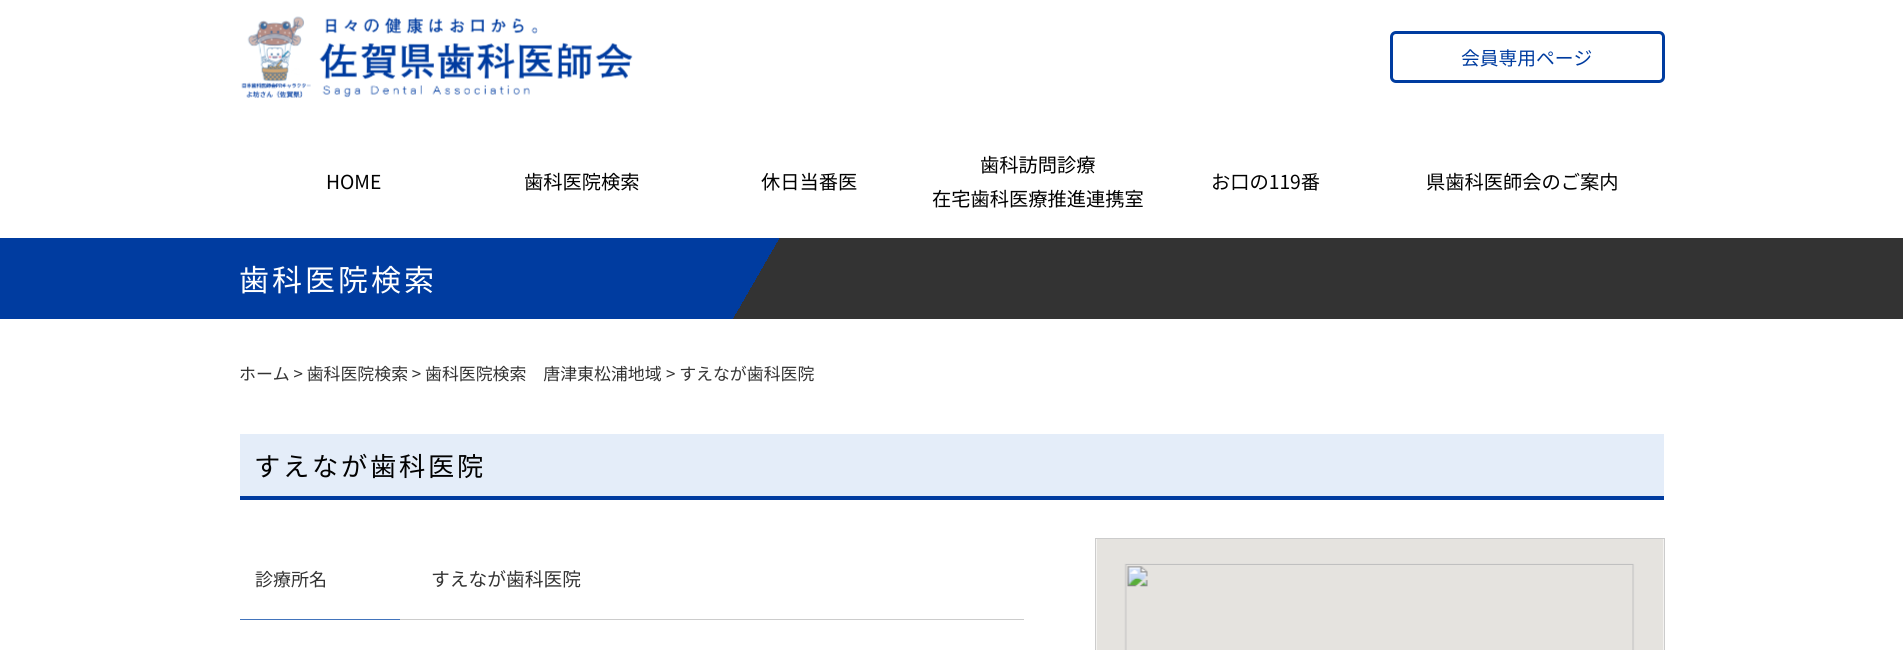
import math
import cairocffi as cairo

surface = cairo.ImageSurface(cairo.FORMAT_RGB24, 1903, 650)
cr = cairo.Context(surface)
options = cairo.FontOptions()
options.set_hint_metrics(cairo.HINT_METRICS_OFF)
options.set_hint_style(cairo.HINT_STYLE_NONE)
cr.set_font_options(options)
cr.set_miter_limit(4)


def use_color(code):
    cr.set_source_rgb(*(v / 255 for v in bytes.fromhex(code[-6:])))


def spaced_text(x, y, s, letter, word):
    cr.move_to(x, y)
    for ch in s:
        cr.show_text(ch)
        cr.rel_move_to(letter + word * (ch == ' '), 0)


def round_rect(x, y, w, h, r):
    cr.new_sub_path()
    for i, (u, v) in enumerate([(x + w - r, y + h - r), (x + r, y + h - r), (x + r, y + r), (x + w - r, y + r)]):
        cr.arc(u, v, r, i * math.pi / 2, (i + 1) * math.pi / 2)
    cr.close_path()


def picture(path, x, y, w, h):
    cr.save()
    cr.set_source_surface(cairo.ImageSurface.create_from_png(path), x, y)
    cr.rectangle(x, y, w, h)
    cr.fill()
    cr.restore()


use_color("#ffffff")
cr.paint()
picture("img1.png", 241, 16, 392, 82)
round_rect(1391.5, 32.5, 272, 49, 4.5)
use_color("#003ca0")
cr.set_line_width(3)
cr.stroke()
cr.select_font_face("Noto Sans JP Thin")
cr.set_font_size(18.75)
cr.move_to(1461, 65)
cr.show_text("会員専用ページ")
cr.set_font_size(19.25)
use_color("#010101")
cr.move_to(326, 189)
cr.show_text("HOME")
cr.move_to(524, 189)
cr.show_text("歯科医院検索")
cr.move_to(761, 189)
cr.show_text("休日当番医")
cr.move_to(980, 172)
cr.show_text("歯科訪問診療")
cr.move_to(932, 206)
cr.show_text("在宅歯科医療推進連携室")
cr.move_to(1211, 189)
cr.show_text("お口の119番")
cr.move_to(1426, 189)
cr.show_text("県歯科医師会のご案内")
gradient = cairo.LinearGradient(220, -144, 1683, 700)
gradient.add_color_stop_rgba(0, 0, 0.235, 0.627, 1)
gradient.add_color_stop_rgba(0.4, 0, 0.235, 0.627, 1)
gradient.add_color_stop_rgba(0.4, 0.2, 0.2, 0.2, 1)
gradient.add_color_stop_rgba(1, 0.2, 0.2, 0.2, 1)
cr.set_source(gradient)
cr.rectangle(0, 238, 1903, 81)
cr.fill()
cr.set_font_size(30)
use_color("#ffffff")
spaced_text(239, 291, "歯科医院検索", 3, 0)
cr.set_font_size(16.9)
use_color("#333333")
cr.move_to(239, 380)
cr.show_text("ホーム > 歯科医院検索 > 歯科医院検索　唐津東松浦地域")
cr.move_to(666, 380)
cr.show_text("> すえなが歯科医院")
use_color("#e4edf9")
cr.rectangle(240, 434, 1424, 62)
cr.fill()
use_color("#003ca0")
cr.rectangle(240, 496, 1424, 4)
cr.fill()
cr.set_font_size(26.25)
use_color("#010101")
spaced_text(254, 476, "すえなが歯科医院", 2.75, 0)
use_color("#cccccc")
cr.rectangle(399, 619, 625, 1)
cr.fill()
use_color("#4274bc")
cr.rectangle(240, 619, 160, 1)
cr.fill()
cr.set_font_size(18)
use_color("#333333")
cr.move_to(255, 586)
cr.show_text("診療所名")
cr.set_font_size(18.75)
cr.move_to(431, 586)
cr.show_text("すえなが歯科医院")
cr.rectangle(1095.5, 538.5, 569, 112)
use_color("#cccccc")
cr.set_line_width(1)
cr.stroke()
picture("img2.png", 1096, 539, 568, 111)
surface.write_to_png("result.png")
